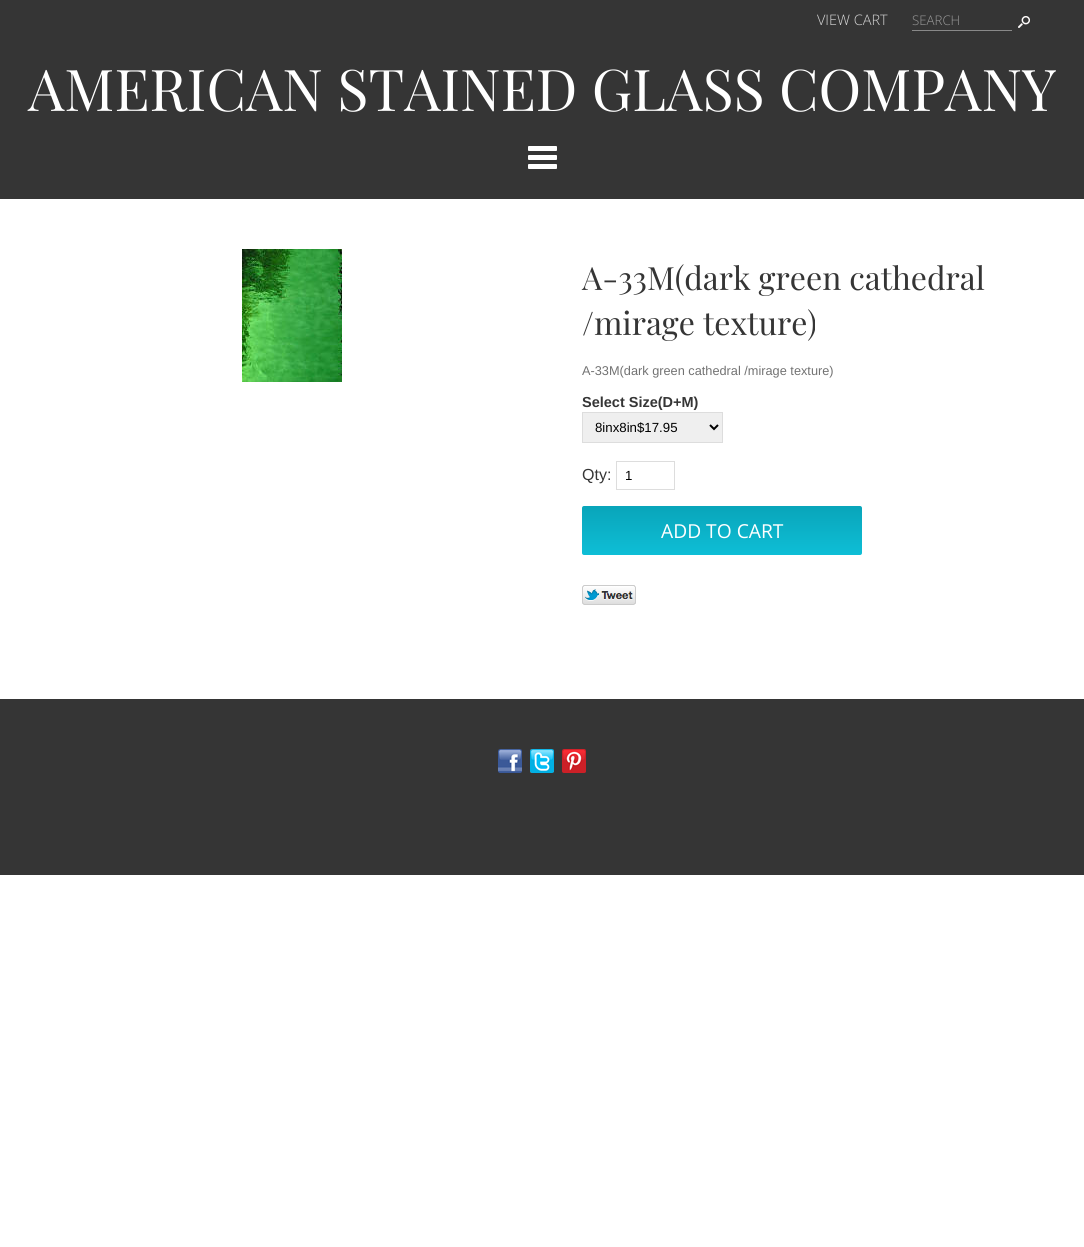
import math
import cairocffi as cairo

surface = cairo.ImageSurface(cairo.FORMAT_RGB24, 1084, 1247)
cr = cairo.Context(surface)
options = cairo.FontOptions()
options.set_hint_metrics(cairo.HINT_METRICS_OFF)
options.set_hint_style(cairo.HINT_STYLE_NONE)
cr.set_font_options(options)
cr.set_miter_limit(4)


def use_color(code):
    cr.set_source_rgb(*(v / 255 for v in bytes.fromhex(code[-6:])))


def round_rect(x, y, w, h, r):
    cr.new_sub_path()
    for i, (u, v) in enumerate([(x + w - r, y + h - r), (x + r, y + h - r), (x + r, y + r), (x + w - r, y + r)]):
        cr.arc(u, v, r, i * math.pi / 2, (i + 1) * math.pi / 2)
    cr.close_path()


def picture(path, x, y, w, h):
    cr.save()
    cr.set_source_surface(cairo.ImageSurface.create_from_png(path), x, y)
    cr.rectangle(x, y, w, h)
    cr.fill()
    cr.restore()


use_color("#ffffff")
cr.paint()
use_color("#353535")
cr.rectangle(0, 0, 1084, 199)
cr.fill()
cr.select_font_face("Open Sans Light")
cr.set_font_size(14.5)
use_color("#d7d7d7")
cr.move_to(817, 25)
cr.show_text("VIEW CART")
use_color("#898989")
cr.rectangle(912, 30, 100, 1)
cr.fill()
cr.set_font_size(13.25)
use_color("#9a9a9a")
cr.move_to(912, 25)
cr.show_text("SEARCH")
picture("img1.png", 1018, 16, 12, 12)
cr.select_font_face("Playfair Display")
cr.set_font_size(57.6)
use_color("#ffffff")
cr.move_to(28, 111)
cr.show_text("AMERICAN STAINED GLASS COMPANY")
picture("img2.png", 528, 146, 29, 23)
picture("img3.png", 242, 249, 100, 133)
cr.set_font_size(32)
use_color("#353535")
cr.move_to(582, 290)
cr.show_text("A-33M(dark green cathedral")
cr.move_to(582, 335)
cr.show_text("/mirage texture)")
cr.select_font_face("Liberation Sans")
cr.set_font_size(12.75)
use_color("#727272")
cr.move_to(582, 375)
cr.show_text("A-33M(dark green cathedral /mirage texture)")
cr.select_font_face("Liberation Sans", cairo.FONT_SLANT_NORMAL, cairo.FONT_WEIGHT_BOLD)
cr.set_font_size(14.5)
use_color("#353535")
cr.move_to(582, 407)
cr.show_text("Select Size(D+M)")
use_color("#efefef")
cr.rectangle(582.5, 412.5, 140, 30)
cr.fill_preserve()
use_color("#dddddd")
cr.set_line_width(1)
cr.stroke()
cr.new_path()
cr.move_to(710, 425)
cr.line_to(714, 429)
cr.line_to(718, 425)
use_color("#000000")
cr.set_line_width(2)
cr.stroke()
cr.select_font_face("Liberation Sans")
cr.set_font_size(13.25)
cr.move_to(595, 432)
cr.show_text("8inx8in$17.95")
cr.set_font_size(16)
use_color("#353535")
cr.move_to(582, 480)
cr.show_text("Qty:")
cr.rectangle(616.5, 461.5, 58, 28)
use_color("#dddddd")
cr.set_line_width(1)
cr.stroke()
cr.set_font_size(13.25)
use_color("#000000")
cr.move_to(625, 480)
cr.show_text("1")
gradient = cairo.LinearGradient(722, 506, 722, 555)
gradient.add_color_stop_rgba(0, 0.035, 0.647, 0.729, 1)
gradient.add_color_stop_rgba(1, 0.055, 0.745, 0.839, 1)
cr.set_source(gradient)
round_rect(582, 506, 280, 49, 2)
cr.fill()
cr.select_font_face("Open Sans")
cr.set_font_size(19.25)
use_color("#ffffff")
cr.move_to(661, 538)
cr.show_text("ADD TO CART")
picture("img4.png", 582, 585, 54, 20)
use_color("#353535")
cr.rectangle(0, 699, 1084, 176)
cr.fill()
picture("img5.png", 498, 749, 24, 24)
picture("img6.png", 530, 749, 24, 24)
picture("img7.png", 562, 749, 24, 24)
surface.write_to_png("result.png")
